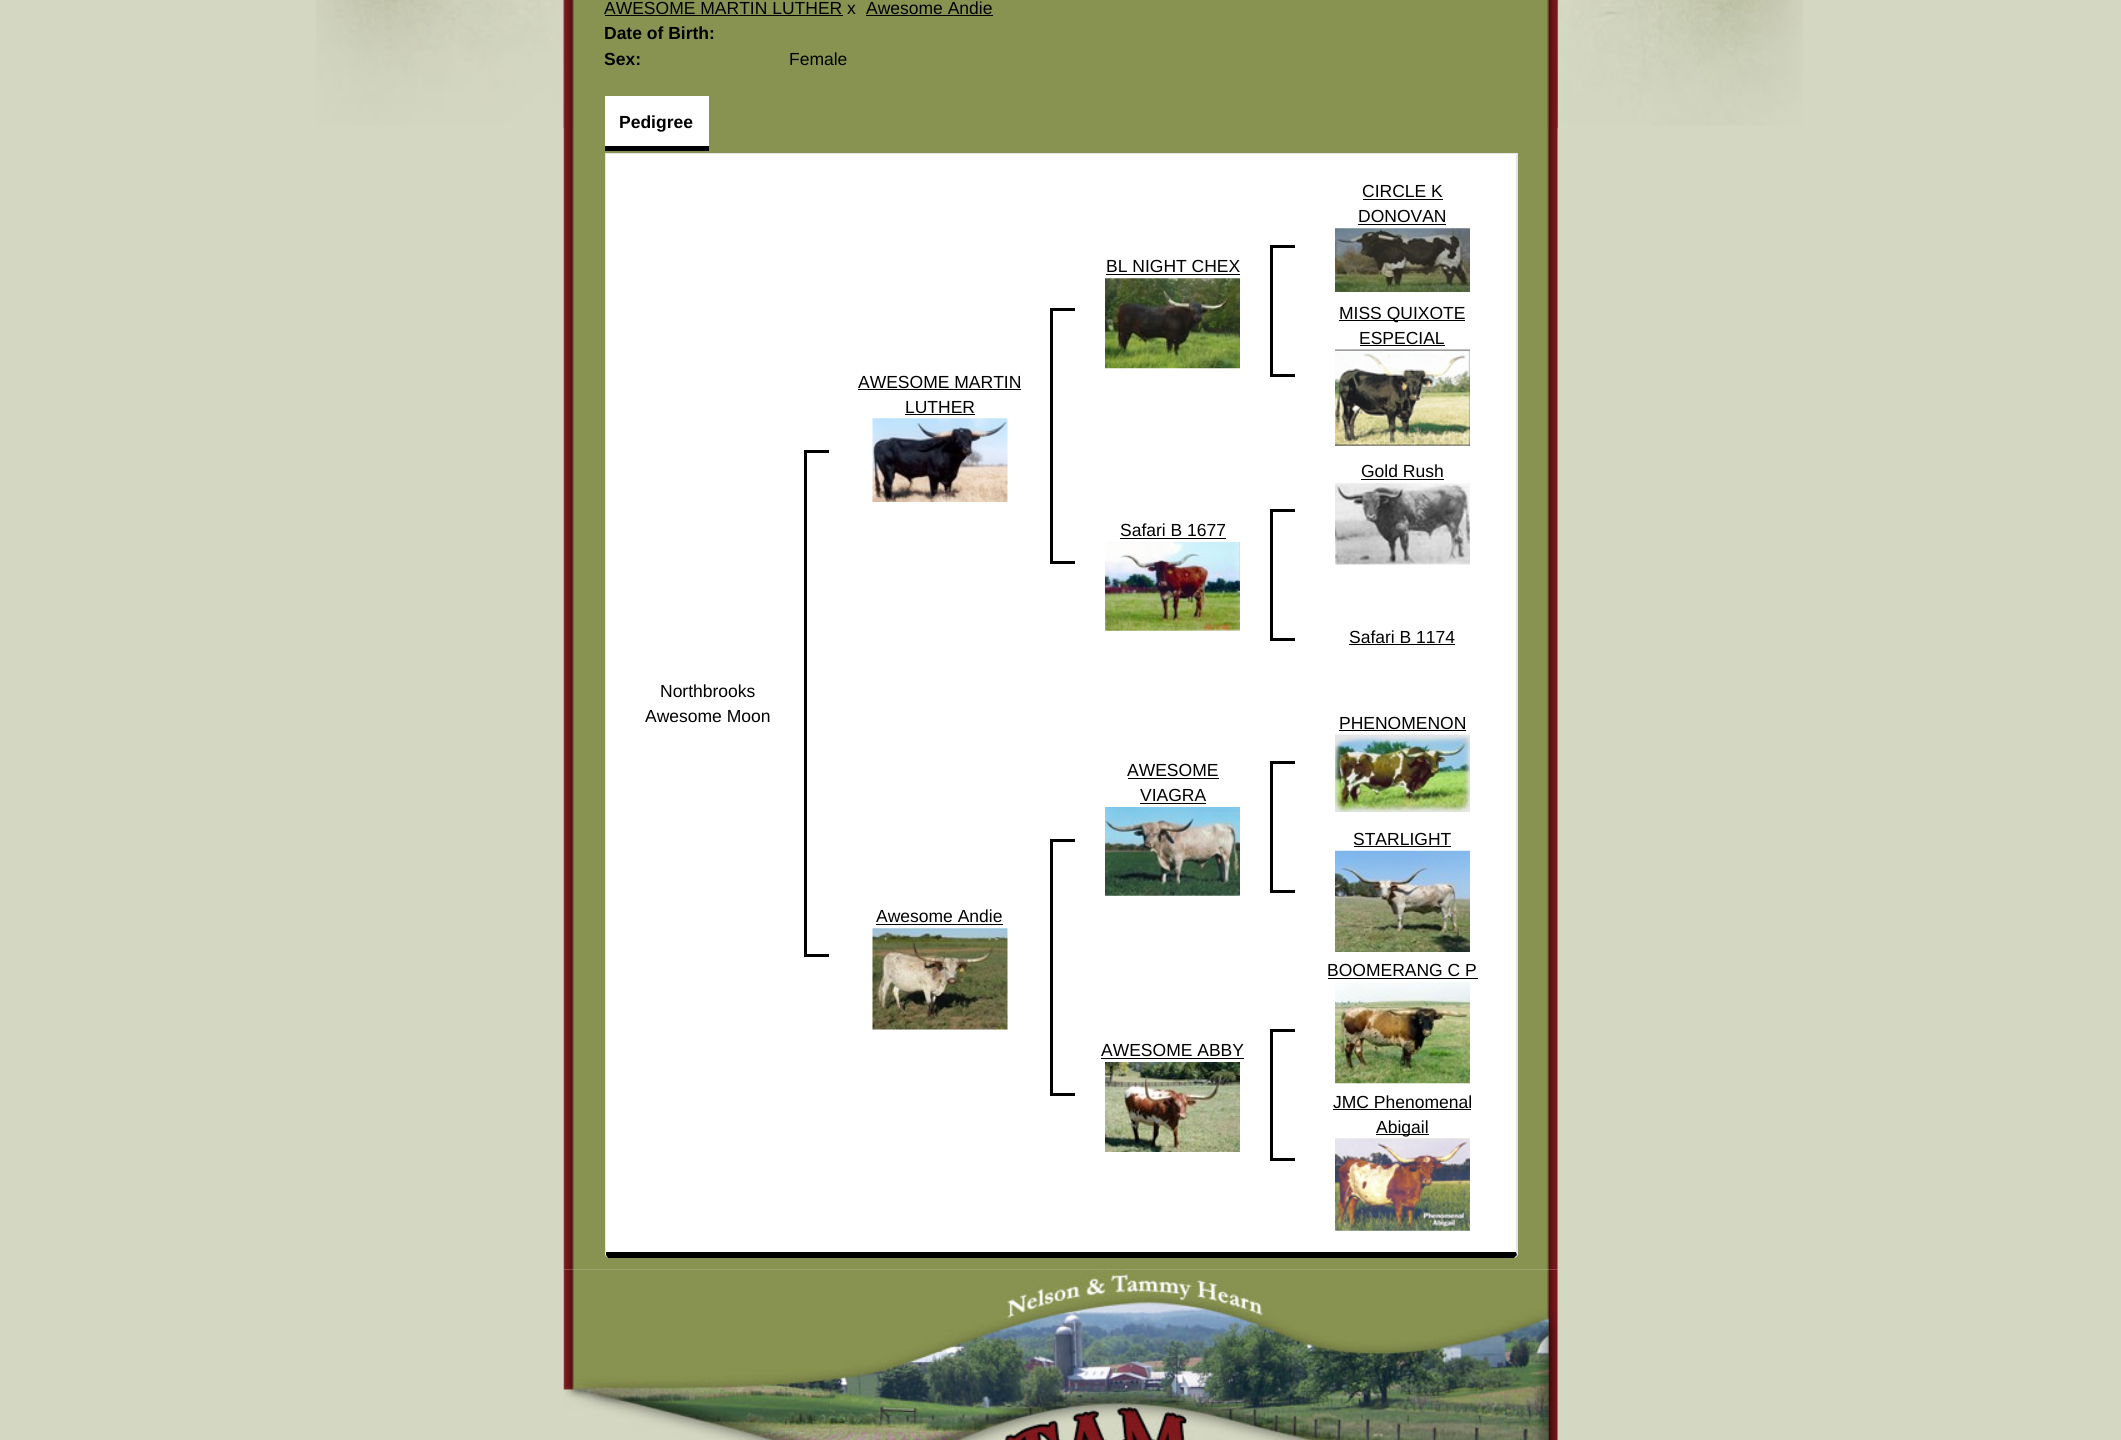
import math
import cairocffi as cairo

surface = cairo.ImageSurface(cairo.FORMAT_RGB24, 2121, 1440)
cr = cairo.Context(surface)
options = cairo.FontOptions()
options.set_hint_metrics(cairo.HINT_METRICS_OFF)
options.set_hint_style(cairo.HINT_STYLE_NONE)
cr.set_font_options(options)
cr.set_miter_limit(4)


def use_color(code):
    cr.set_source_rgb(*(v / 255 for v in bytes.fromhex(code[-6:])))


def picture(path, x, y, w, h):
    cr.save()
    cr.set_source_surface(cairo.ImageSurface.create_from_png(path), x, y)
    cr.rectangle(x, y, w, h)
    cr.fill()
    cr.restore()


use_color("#d4d7c2")
cr.paint()
picture("img1.png", 316, 0, 1487, 126)
picture("img2.png", 563, 0, 995, 1270)
picture("img3.png", 563, 0, 995, 129)
cr.select_font_face("Liberation Sans")
cr.set_font_size(17.5)
use_color("#000000")
cr.move_to(604, 14)
cr.show_text("AWESOME MARTIN LUTHER x")
cr.rectangle(605, 15, 238, 1)
cr.fill()
cr.move_to(866, 14)
cr.show_text("Awesome Andie")
cr.rectangle(866, 15, 127, 1)
cr.fill()
cr.select_font_face("Liberation Sans", cairo.FONT_SLANT_NORMAL, cairo.FONT_WEIGHT_BOLD)
cr.move_to(604, 39)
cr.show_text("Date of Birth:")
cr.move_to(604, 65)
cr.show_text("Sex:")
cr.select_font_face("Liberation Sans")
cr.move_to(789, 65)
cr.show_text("Female")
use_color("#e5e5e5")
cr.rectangle(605, 153, 913, 1)
cr.fill()
use_color("#000000")
cr.rectangle(605, 146, 104, 5)
cr.fill()
use_color("#ffffff")
cr.rectangle(605, 96, 104, 50)
cr.fill()
cr.select_font_face("Liberation Sans", cairo.FONT_SLANT_NORMAL, cairo.FONT_WEIGHT_BOLD)
use_color("#000000")
cr.move_to(619, 128)
cr.show_text("Pedigree")
use_color("#ffffff")
cr.new_path()
cr.move_to(605, 154)
cr.line_to(1518, 154)
cr.line_to(1518, 1253)
cr.curve_to(1518, 1256, 1516, 1258, 1513, 1258)
cr.line_to(610, 1258)
cr.curve_to(607, 1258, 605, 1256, 605, 1253)
cr.close_path()
cr.fill()
use_color("#e5e5e5")
cr.new_path()
cr.move_to(1517, 1255)
cr.line_to(1516, 1252)
cr.line_to(1516, 154)
cr.line_to(1518, 154)
cr.line_to(1518, 1254)
cr.close_path()
cr.fill()
use_color("#000000")
cr.new_path()
cr.move_to(608, 1258)
cr.line_to(606, 1255)
cr.line_to(606, 1252)
cr.line_to(1516, 1252)
cr.line_to(1517, 1255)
cr.line_to(1514, 1258)
cr.close_path()
cr.fill()
use_color("#e5e5e5")
cr.new_path()
cr.move_to(605, 154)
cr.line_to(606, 154)
cr.line_to(606, 1252)
cr.line_to(606, 1255)
cr.line_to(605, 1252)
cr.close_path()
cr.fill()
cr.select_font_face("Liberation Sans")
use_color("#000000")
cr.move_to(1362, 197)
cr.show_text("CIRCLE K")
cr.rectangle(1363, 199, 80, 1)
cr.fill()
cr.move_to(1358, 222)
cr.show_text("DONOVAN")
cr.rectangle(1358, 224, 88, 1)
cr.fill()
picture("img4.png", 1335, 228, 135, 64)
cr.move_to(1106, 272)
cr.show_text("BL NIGHT CHEX")
cr.rectangle(1106, 274, 134, 1)
cr.fill()
picture("img5.png", 1105, 278, 135, 91)
cr.rectangle(1270, 245, 25, 3)
cr.fill()
cr.rectangle(1270, 374, 25, 3)
cr.fill()
cr.rectangle(1270, 245, 3, 131)
cr.fill()
cr.move_to(858, 388)
cr.show_text("AWESOME MARTIN")
cr.rectangle(858, 389, 163, 1)
cr.fill()
cr.move_to(905, 413)
cr.show_text("LUTHER")
cr.rectangle(905, 414, 70, 1)
cr.fill()
picture("img6.png", 872, 418, 136, 84)
cr.rectangle(1050, 308, 25, 3)
cr.fill()
cr.rectangle(1050, 561, 25, 3)
cr.fill()
cr.rectangle(1050, 308, 3, 256)
cr.fill()
cr.move_to(660, 697)
cr.show_text("Northbrooks")
cr.move_to(645, 722)
cr.show_text("Awesome Moon")
cr.rectangle(804, 450, 25, 3)
cr.fill()
cr.rectangle(804, 954, 25, 3)
cr.fill()
cr.rectangle(804, 450, 3, 506)
cr.fill()
cr.rectangle(1339, 320, 126, 1)
cr.fill()
cr.move_to(1339, 319)
cr.show_text("MISS QUIXOTE")
cr.move_to(1359, 344)
cr.show_text("ESPECIAL")
cr.rectangle(1360, 345, 85, 1)
cr.fill()
picture("img7.png", 1335, 349, 135, 97)
cr.move_to(1361, 477)
cr.show_text("Gold Rush")
cr.rectangle(1361, 479, 83, 1)
cr.fill()
picture("img8.png", 1335, 483, 135, 82)
cr.move_to(1120, 536)
cr.show_text("Safari B 1677")
cr.rectangle(1120, 538, 106, 1)
cr.fill()
picture("img9.png", 1105, 542, 135, 89)
cr.rectangle(1270, 509, 25, 3)
cr.fill()
cr.rectangle(1270, 638, 25, 3)
cr.fill()
cr.rectangle(1270, 509, 3, 131)
cr.fill()
cr.move_to(1349, 643)
cr.show_text("Safari B 1174")
cr.rectangle(1349, 644, 106, 1)
cr.fill()
cr.move_to(1339, 729)
cr.show_text("PHENOMENON")
cr.rectangle(1339, 730, 127, 1)
cr.fill()
picture("img10.png", 1335, 734, 135, 78)
cr.move_to(1127, 776)
cr.show_text("AWESOME")
cr.rectangle(1128, 778, 91, 1)
cr.fill()
cr.move_to(1140, 801)
cr.show_text("VIAGRA")
cr.rectangle(1140, 803, 66, 1)
cr.fill()
picture("img11.png", 1105, 807, 135, 89)
cr.rectangle(1270, 761, 25, 3)
cr.fill()
cr.rectangle(1270, 890, 25, 3)
cr.fill()
cr.rectangle(1270, 761, 3, 132)
cr.fill()
cr.move_to(876, 922)
cr.show_text("Awesome Andie")
cr.rectangle(876, 924, 127, 1)
cr.fill()
picture("img12.png", 872, 928, 136, 102)
cr.rectangle(1050, 839, 25, 3)
cr.fill()
cr.rectangle(1050, 1093, 25, 3)
cr.fill()
cr.rectangle(1050, 839, 3, 256)
cr.fill()
cr.move_to(1353, 845)
cr.show_text("STARLIGHT")
cr.rectangle(1354, 846, 97, 1)
cr.fill()
picture("img13.png", 1335, 850, 135, 102)
cr.move_to(1327, 976)
cr.show_text("BOOMERANG C P")
cr.rectangle(1328, 978, 150, 1)
cr.fill()
picture("img14.png", 1335, 982, 135, 102)
cr.move_to(1101, 1056)
cr.show_text("AWESOME ABBY")
cr.rectangle(1101, 1058, 143, 1)
cr.fill()
picture("img15.png", 1105, 1062, 135, 90)
cr.rectangle(1270, 1029, 25, 3)
cr.fill()
cr.rectangle(1270, 1158, 25, 3)
cr.fill()
cr.rectangle(1270, 1029, 3, 131)
cr.fill()
cr.move_to(1333, 1108)
cr.show_text("JMC Phenomenal")
cr.rectangle(1333, 1109, 138, 1)
cr.fill()
cr.rectangle(1376, 1134, 53, 1)
cr.fill()
cr.move_to(1376, 1133)
cr.show_text("Abigail")
picture("img16.png", 1335, 1138, 135, 93)
picture("img17.png", 563, 1269, 995, 171)
surface.write_to_png("result.png")
